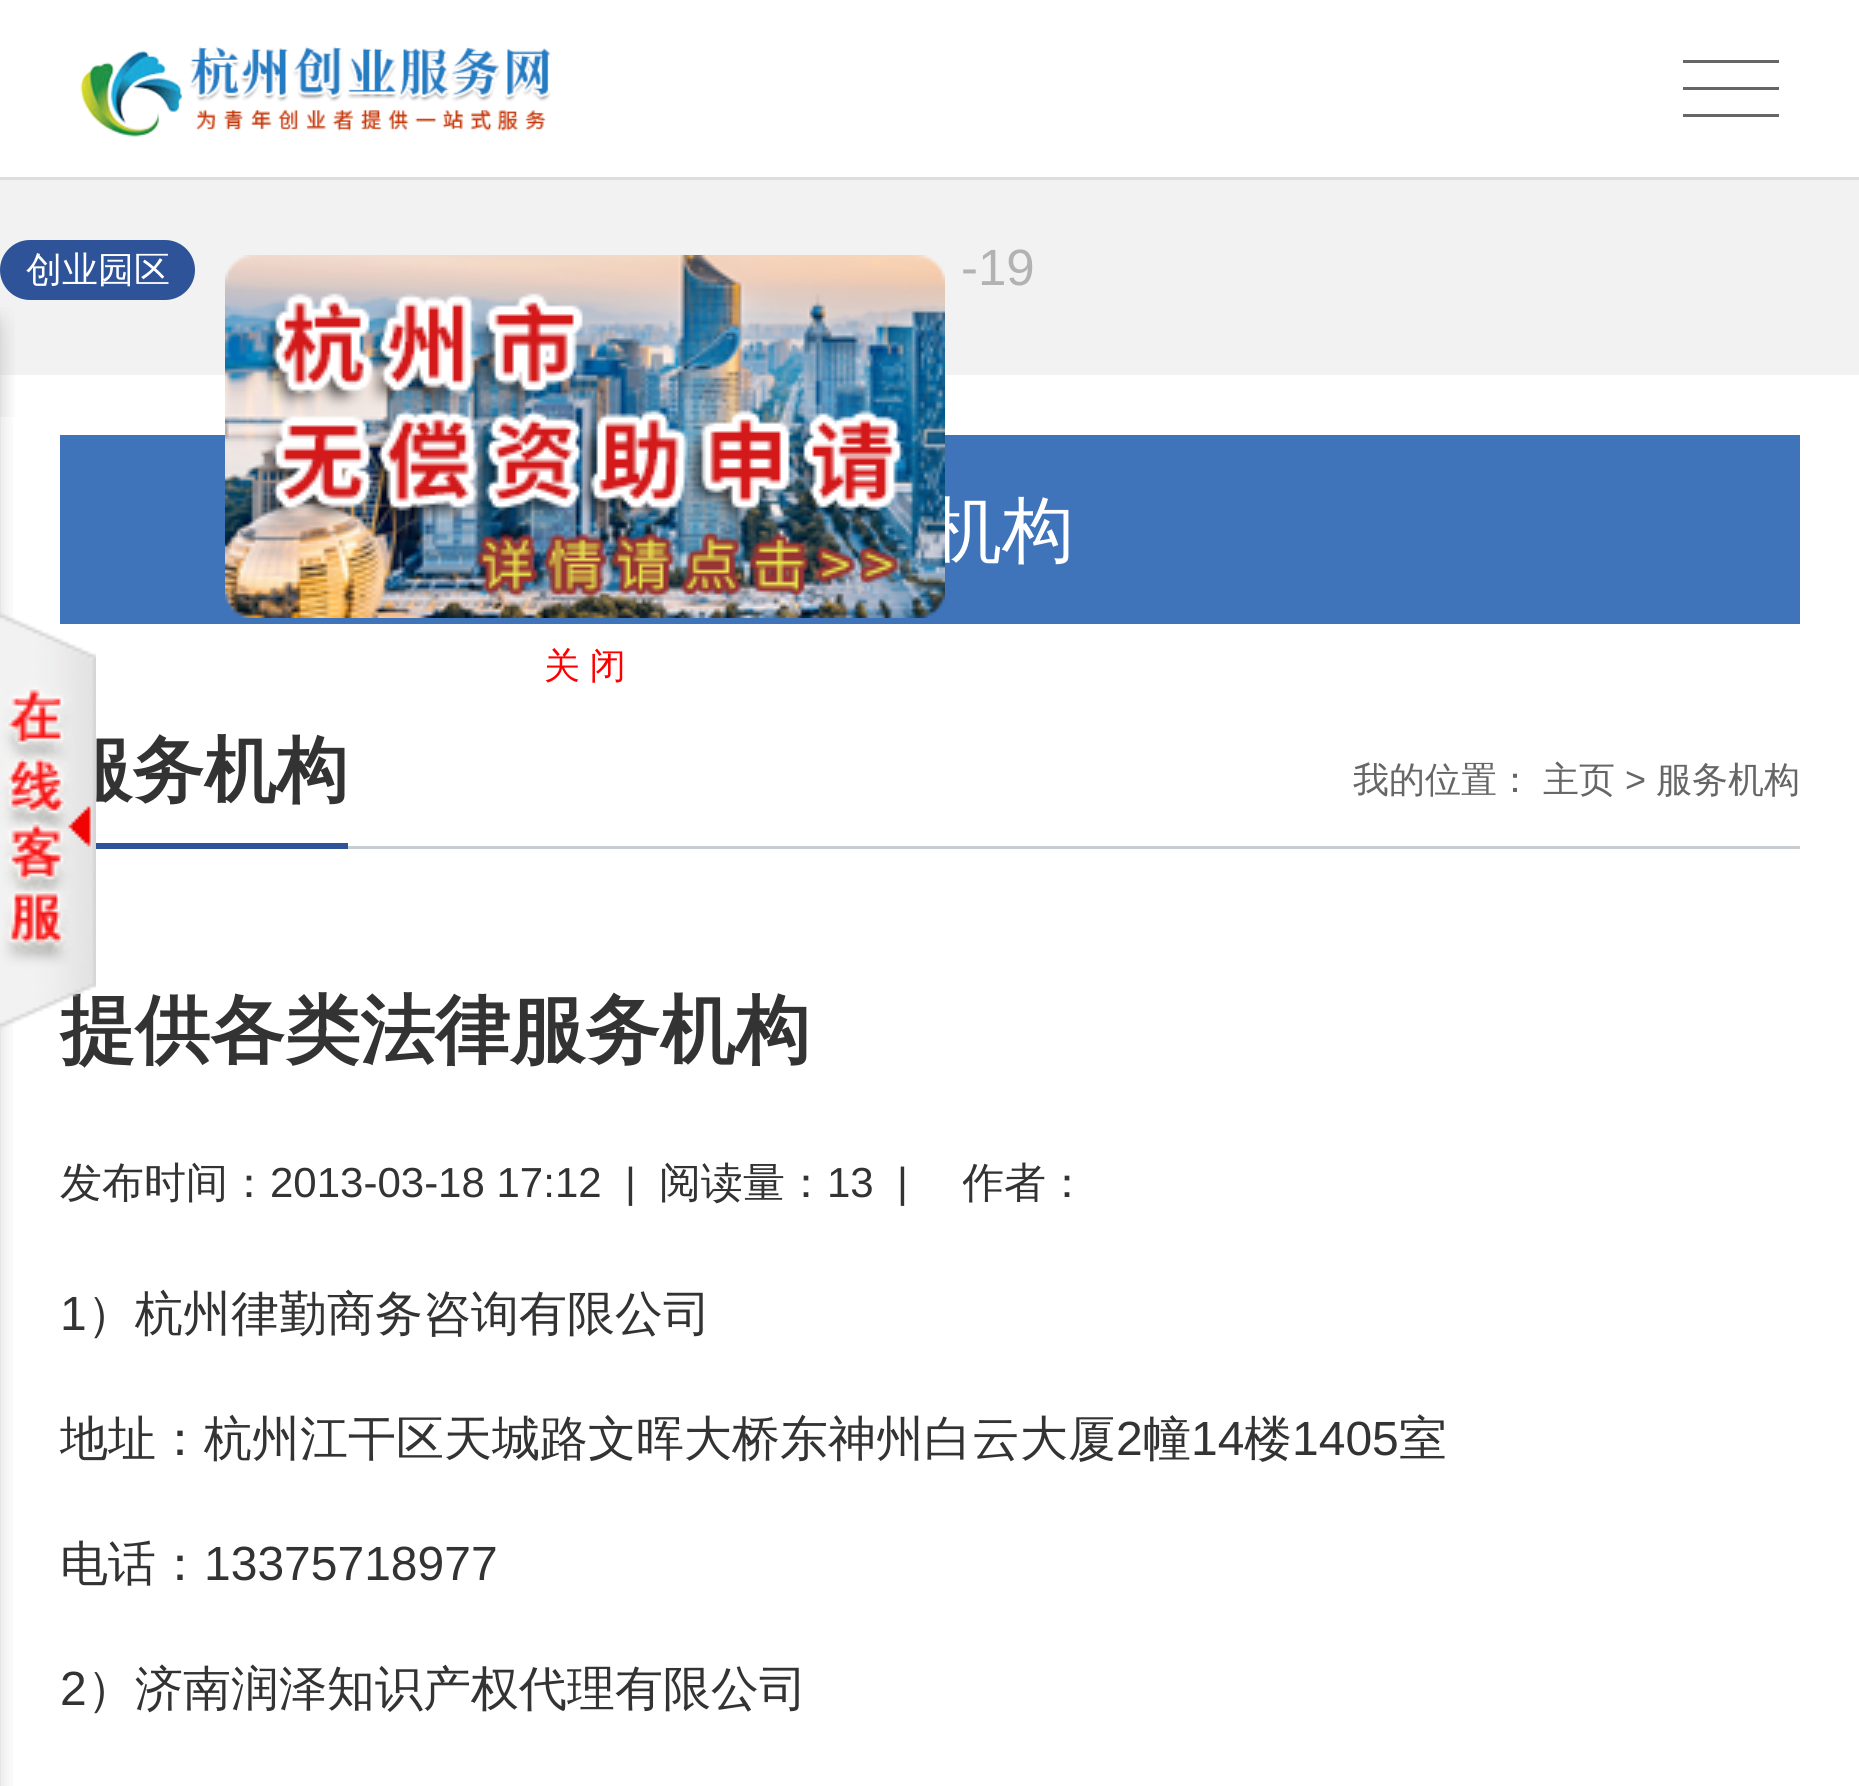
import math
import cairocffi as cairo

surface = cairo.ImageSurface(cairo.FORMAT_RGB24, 1859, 1786)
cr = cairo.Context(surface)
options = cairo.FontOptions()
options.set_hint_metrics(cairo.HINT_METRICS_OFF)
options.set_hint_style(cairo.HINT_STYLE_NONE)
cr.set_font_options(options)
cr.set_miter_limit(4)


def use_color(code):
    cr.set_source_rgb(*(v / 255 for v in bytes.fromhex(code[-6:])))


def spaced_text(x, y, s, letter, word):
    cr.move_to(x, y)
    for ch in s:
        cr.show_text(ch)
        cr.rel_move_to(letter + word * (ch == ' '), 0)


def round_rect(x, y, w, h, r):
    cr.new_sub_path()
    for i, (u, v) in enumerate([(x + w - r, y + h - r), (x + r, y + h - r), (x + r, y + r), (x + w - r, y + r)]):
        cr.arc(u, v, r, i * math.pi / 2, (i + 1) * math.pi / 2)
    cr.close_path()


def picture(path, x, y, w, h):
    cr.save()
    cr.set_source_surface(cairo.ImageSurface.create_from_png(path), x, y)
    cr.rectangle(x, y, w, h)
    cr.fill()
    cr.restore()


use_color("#ffffff")
cr.paint()
use_color("#dddddd")
cr.rectangle(0, 177, 1859, 3)
cr.fill()
picture("img1.png", 80, 46, 472, 91)
use_color("#666666")
cr.rectangle(1683, 60, 96, 3)
cr.fill()
cr.rectangle(1683, 87, 96, 3)
cr.fill()
cr.rectangle(1683, 114, 96, 3)
cr.fill()
use_color("#f2f2f2")
cr.rectangle(0, 180, 1859, 195)
cr.fill()
use_color("#2f5398")
round_rect(0, 240, 195, 60, 30)
cr.fill()
cr.select_font_face("WenQuanYi Zen Hei Medium")
cr.set_font_size(36)
use_color("#ffffff")
cr.move_to(26, 282)
cr.show_text("创业园区")
cr.select_font_face("Liberation Sans")
cr.set_font_size(51)
use_color("#b2b2b2")
cr.move_to(961, 285)
cr.show_text("-19")
use_color("#3f74bb")
cr.rectangle(60, 435, 1740, 189)
cr.fill()
cr.select_font_face("WenQuanYi Zen Hei Medium")
cr.set_font_size(72)
use_color("#ffffff")
cr.move_to(930, 555)
cr.show_text("机构")
use_color("#c7cdd3")
cr.rectangle(348, 846, 1452, 3)
cr.fill()
use_color("#2f5398")
cr.rectangle(96, 843, 252, 6)
cr.fill()
cr.select_font_face("WenQuanYi Zen Hei", cairo.FONT_SLANT_NORMAL, cairo.FONT_WEIGHT_BOLD)
use_color("#333333")
cr.move_to(60, 795)
cr.show_text("服务机构")
cr.select_font_face("WenQuanYi Zen Hei Medium")
cr.set_font_size(36)
use_color("#666666")
cr.move_to(1353, 792)
cr.show_text("我的位置：")
cr.move_to(1543, 792)
cr.show_text("主页")
cr.select_font_face("Liberation Sans")
cr.move_to(1625, 792)
cr.show_text(">")
cr.select_font_face("WenQuanYi Zen Hei Medium")
cr.move_to(1656, 792)
cr.show_text("服务机构")
cr.select_font_face("WenQuanYi Zen Hei", cairo.FONT_SLANT_NORMAL, cairo.FONT_WEIGHT_BOLD)
cr.set_font_size(75)
use_color("#333333")
cr.move_to(60, 1056)
cr.show_text("提供各类法律服务机构")
cr.select_font_face("WenQuanYi Zen Hei Medium")
cr.set_font_size(42)
cr.move_to(60, 1197)
cr.show_text("发布时间：")
cr.select_font_face("Liberation Sans")
cr.move_to(270, 1197)
cr.show_text("2013-03-18 17:12")
cr.move_to(625, 1197)
cr.show_text("|")
cr.select_font_face("WenQuanYi Zen Hei Medium")
cr.move_to(659, 1197)
cr.show_text("阅读量：")
cr.select_font_face("Liberation Sans")
cr.move_to(827, 1197)
cr.show_text("13")
cr.move_to(897, 1197)
cr.show_text("|")
cr.save()
cr.rectangle(963, 1149, 126, 66)
cr.clip()
cr.select_font_face("WenQuanYi Zen Hei Medium")
cr.move_to(962, 1197)
cr.show_text("作者：")
cr.restore()
cr.set_font_size(48)
cr.move_to(60, 1330)
cr.show_text("1")
cr.select_font_face("WenQuanYi Zen Hei Medium")
cr.move_to(87, 1330)
cr.show_text("）杭州律勤商务咨询有限公司")
cr.move_to(60, 1455)
cr.show_text("地址：杭州江干区天城路文晖大桥东神州白云大厦")
cr.select_font_face("Liberation Sans")
cr.move_to(1116, 1455)
cr.show_text("2")
cr.select_font_face("WenQuanYi Zen Hei Medium")
cr.move_to(1143, 1455)
cr.show_text("幢")
cr.select_font_face("Liberation Sans")
cr.move_to(1191, 1455)
cr.show_text("14")
cr.select_font_face("WenQuanYi Zen Hei Medium")
cr.move_to(1244, 1455)
cr.show_text("楼")
cr.select_font_face("Liberation Sans")
cr.move_to(1292, 1455)
cr.show_text("1405")
cr.select_font_face("WenQuanYi Zen Hei Medium")
cr.move_to(1399, 1455)
cr.show_text("室")
cr.move_to(60, 1580)
cr.show_text("电话：")
cr.select_font_face("Liberation Sans")
cr.move_to(204, 1580)
cr.show_text("13375718977")
cr.move_to(60, 1705)
cr.show_text("2")
cr.select_font_face("WenQuanYi Zen Hei Medium")
cr.move_to(87, 1705)
cr.show_text("）济南润泽知识产权代理有限公司")
picture("img2.png", 0, 307, 15, 110)
picture("img3.png", 0, 417, 13, 1369)
picture("img4.png", 0, 612, 96, 417)
picture("img5.png", 225, 255, 720, 363)
cr.set_font_size(36)
use_color("#ff0000")
spaced_text(544, 678, "关 闭", 0, -1)
surface.write_to_png("result.png")
